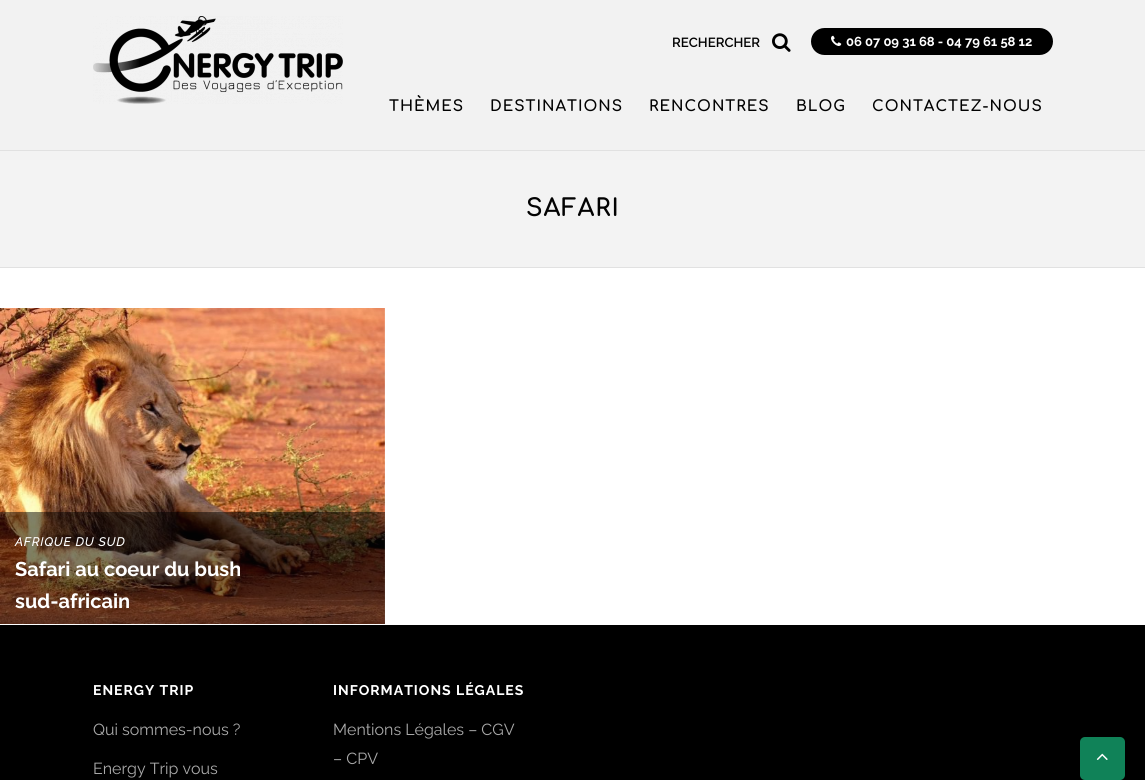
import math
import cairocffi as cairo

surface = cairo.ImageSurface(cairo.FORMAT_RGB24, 1145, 780)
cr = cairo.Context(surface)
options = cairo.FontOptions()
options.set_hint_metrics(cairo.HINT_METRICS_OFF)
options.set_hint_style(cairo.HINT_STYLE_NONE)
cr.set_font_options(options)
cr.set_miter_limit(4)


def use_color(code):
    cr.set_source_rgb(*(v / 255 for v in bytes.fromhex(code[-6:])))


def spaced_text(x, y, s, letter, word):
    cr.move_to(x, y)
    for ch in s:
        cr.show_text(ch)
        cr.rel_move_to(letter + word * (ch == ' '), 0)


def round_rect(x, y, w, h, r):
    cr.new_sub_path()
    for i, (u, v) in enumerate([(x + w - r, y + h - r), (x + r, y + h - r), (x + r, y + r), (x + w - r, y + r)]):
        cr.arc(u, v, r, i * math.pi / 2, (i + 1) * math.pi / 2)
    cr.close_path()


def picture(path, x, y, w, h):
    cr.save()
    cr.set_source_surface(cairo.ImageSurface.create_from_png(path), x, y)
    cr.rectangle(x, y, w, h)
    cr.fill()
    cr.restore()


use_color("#ffffff")
cr.paint()
use_color("#f2f2f2")
cr.rectangle(0, 0, 1145, 150)
cr.fill()
use_color("#e1e1e1")
cr.rectangle(0, 150, 1145, 1)
cr.fill()
picture("img1.png", 93, 16, 250, 88)
cr.select_font_face("Raleway SemiBold")
cr.set_font_size(13.25)
use_color("#020202")
cr.move_to(672, 47)
cr.show_text("RECHERCHER")
picture("img2.png", 772, 33, 19, 19)
use_color("#000000")
round_rect(811, 28, 242, 27, 13.5)
cr.fill()
picture("img3.png", 831, 35, 11, 11)
cr.select_font_face("Raleway", cairo.FONT_SLANT_NORMAL, cairo.FONT_WEIGHT_BOLD)
cr.set_font_size(13)
use_color("#ffffff")
cr.move_to(846, 46)
cr.show_text("06 07 09 31 68 - 04 79 61 58 12")
cr.select_font_face("Comfortaa", cairo.FONT_SLANT_NORMAL, cairo.FONT_WEIGHT_BOLD)
cr.set_font_size(15)
use_color("#020202")
spaced_text(389, 111, "THÈMES", 1, 0)
spaced_text(490, 111, "DESTINATIONS", 1, 0)
spaced_text(649, 111, "RENCONTRES", 1, 0)
spaced_text(796, 111, "BLOG", 1, 0)
spaced_text(872, 111, "CONTACTEZ-NOUS", 1, 0)
use_color("#f3f3f3")
cr.rectangle(0, 151, 1145, 116)
cr.fill()
use_color("#e1e1e1")
cr.rectangle(0, 267, 1145, 1)
cr.fill()
cr.set_font_size(24)
use_color("#020202")
spaced_text(526, 216, "SAFARI", 1, 0)
picture("img4.png", 0, 308, 385, 316)
cr.set_source_rgba(0, 0, 0, 0.49)
cr.rectangle(0, 512, 385, 112)
cr.fill()
cr.select_font_face("Raleway", cairo.FONT_SLANT_ITALIC, cairo.FONT_WEIGHT_BOLD)
cr.set_font_size(12)
use_color("#ffffff")
spaced_text(15, 546, "AFRIQUE DU SUD", 1, 0)
cr.select_font_face("Raleway", cairo.FONT_SLANT_NORMAL, cairo.FONT_WEIGHT_BOLD)
cr.set_font_size(20)
cr.move_to(15, 576)
cr.show_text("Safari au coeur du bush")
cr.move_to(15, 608)
cr.show_text("sud-africain")
use_color("#000000")
cr.rectangle(0, 625, 1145, 155)
cr.fill()
cr.set_font_size(14)
use_color("#ffffff")
spaced_text(93, 695, "ENERGY TRIP", 1, 0)
cr.select_font_face("Raleway")
cr.set_font_size(16)
use_color("#aaaaaa")
cr.move_to(93, 735)
cr.show_text("Qui sommes-nous ?")
cr.move_to(93, 774)
cr.show_text("Energy Trip vous")
cr.select_font_face("Raleway", cairo.FONT_SLANT_NORMAL, cairo.FONT_WEIGHT_BOLD)
cr.set_font_size(14)
use_color("#ffffff")
spaced_text(333, 695, "INFORMATIONS LÉGALES", 1, 0)
cr.select_font_face("Raleway")
cr.set_font_size(16)
use_color("#aaaaaa")
cr.move_to(333, 735)
cr.show_text("Mentions Légales – CGV")
cr.move_to(333, 764)
cr.show_text("– CPV")
use_color("#108258")
round_rect(1080, 737, 45, 43, 5)
cr.fill()
picture("img5.png", 1096, 753, 12, 7)
surface.write_to_png("result.png")
